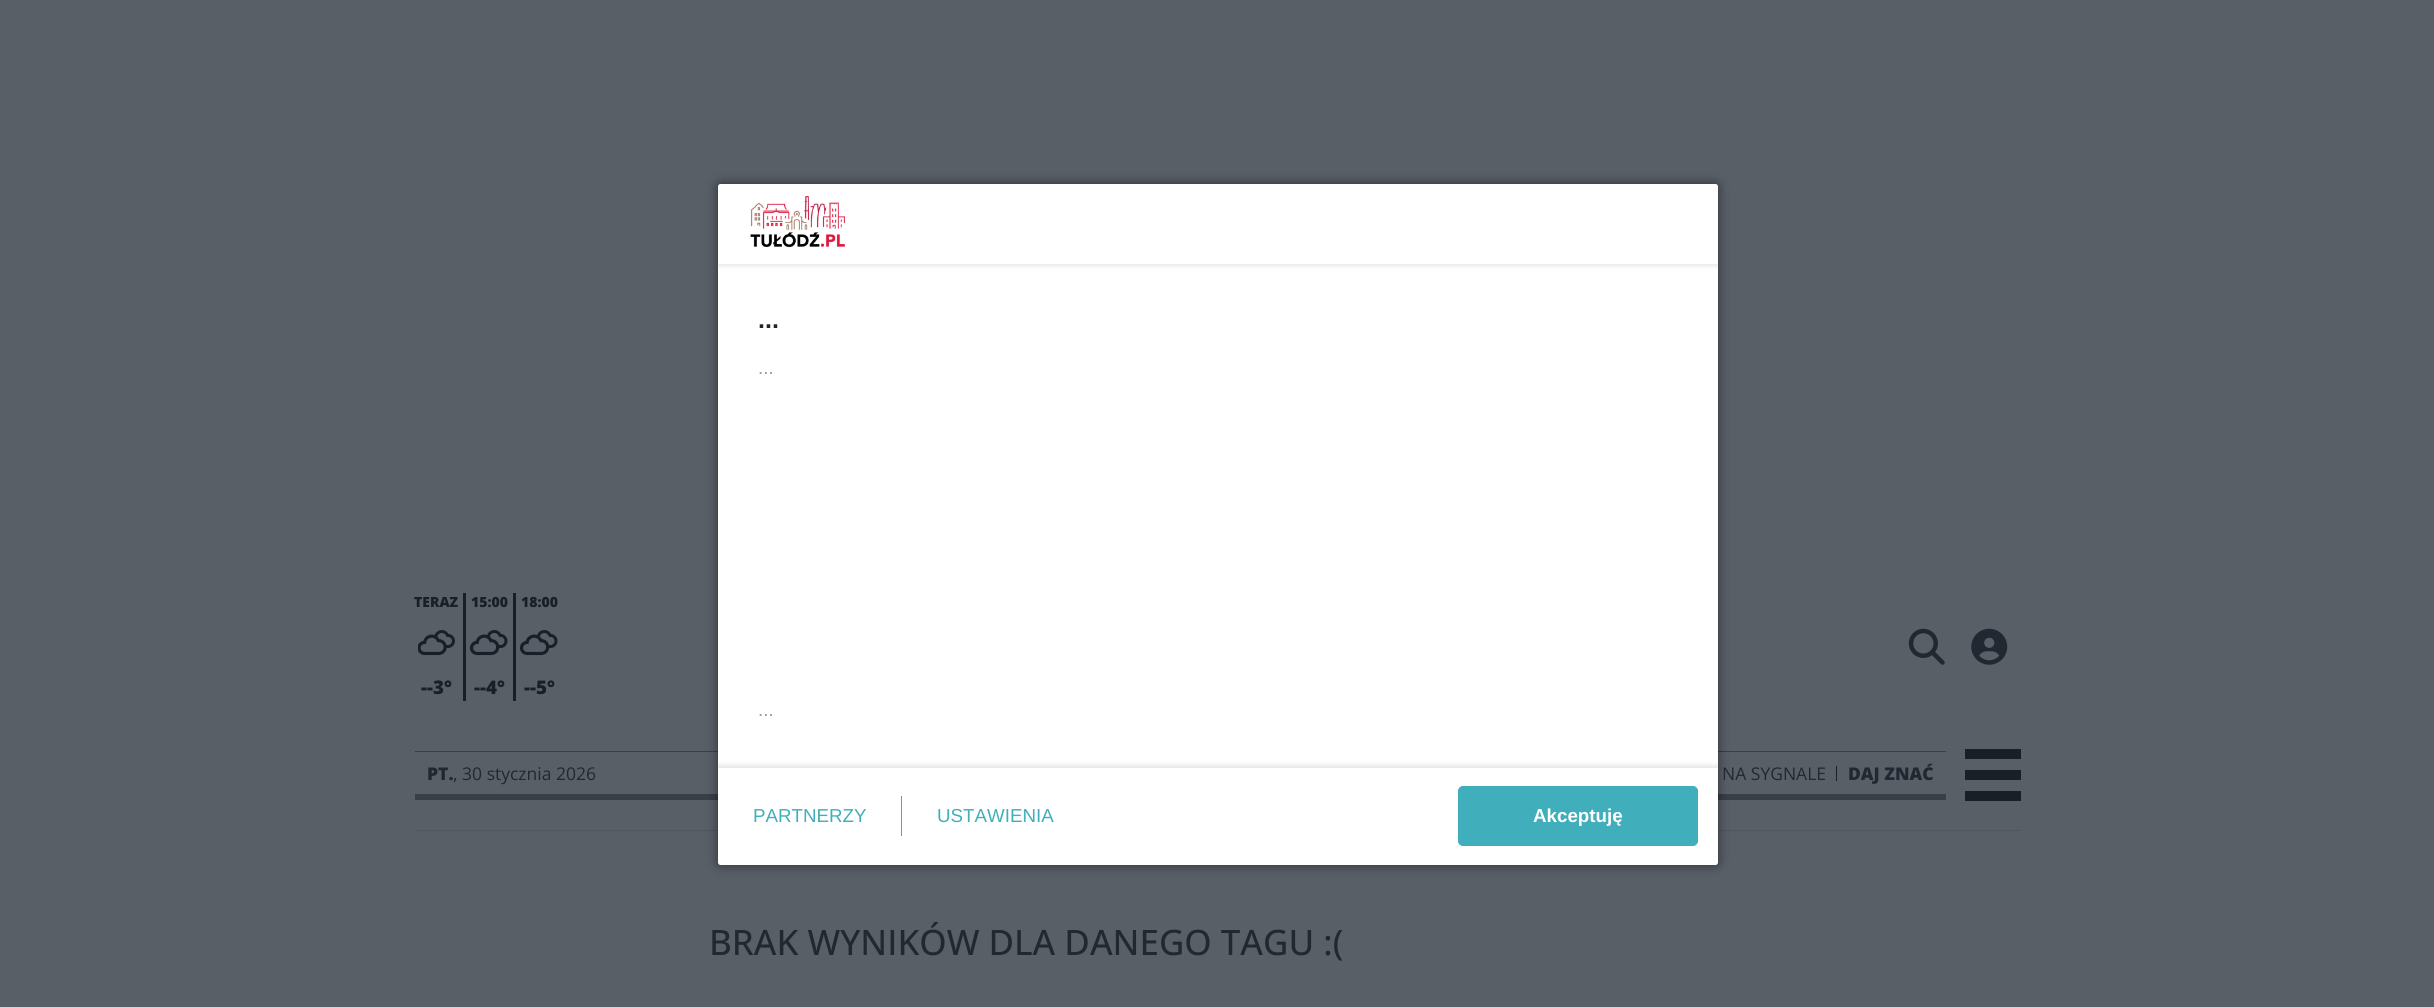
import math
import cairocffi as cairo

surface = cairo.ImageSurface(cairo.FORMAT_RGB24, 2434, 1007)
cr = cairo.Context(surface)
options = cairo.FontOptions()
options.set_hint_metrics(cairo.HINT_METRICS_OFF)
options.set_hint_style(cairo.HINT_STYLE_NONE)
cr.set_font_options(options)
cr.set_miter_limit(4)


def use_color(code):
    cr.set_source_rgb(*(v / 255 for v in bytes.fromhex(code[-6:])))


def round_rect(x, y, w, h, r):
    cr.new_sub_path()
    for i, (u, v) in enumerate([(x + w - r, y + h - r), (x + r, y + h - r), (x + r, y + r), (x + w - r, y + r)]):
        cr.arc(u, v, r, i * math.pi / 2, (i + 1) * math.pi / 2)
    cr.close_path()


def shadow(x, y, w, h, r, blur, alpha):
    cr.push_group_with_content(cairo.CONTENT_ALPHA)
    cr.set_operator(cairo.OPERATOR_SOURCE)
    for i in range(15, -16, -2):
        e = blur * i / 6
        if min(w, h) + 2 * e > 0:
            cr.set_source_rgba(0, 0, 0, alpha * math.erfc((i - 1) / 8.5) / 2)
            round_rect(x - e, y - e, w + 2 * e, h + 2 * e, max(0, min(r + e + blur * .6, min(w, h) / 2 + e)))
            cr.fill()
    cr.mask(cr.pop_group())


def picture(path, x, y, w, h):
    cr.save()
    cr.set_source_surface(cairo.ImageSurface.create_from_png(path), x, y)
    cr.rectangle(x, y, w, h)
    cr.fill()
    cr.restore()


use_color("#595f67")
cr.paint()
use_color("#393f47")
cr.rectangle(415, 751, 1531, 1)
cr.fill()
cr.rectangle(415, 794, 1531, 6)
cr.fill()
use_color("#505761")
cr.rectangle(415, 830, 1606, 1)
cr.fill()
use_color("#000000")
shadow(718, 184, 1000, 681, 2.5, 6, 0.5)
use_color("#ffffff")
round_rect(718, 184, 1000, 681, 2.5)
cr.fill()
cr.save()
round_rect(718, 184, 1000, 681, 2.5)
cr.clip()
cr.set_fill_rule(cairo.FILL_RULE_EVEN_ODD)
cr.new_path()
cr.move_to(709, 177)
cr.line_to(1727, 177)
cr.line_to(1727, 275)
cr.line_to(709, 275)
cr.close_path()
cr.move_to(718, 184)
cr.line_to(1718, 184)
cr.line_to(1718, 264)
cr.line_to(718, 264)
cr.close_path()
cr.clip()
use_color("#000000")
shadow(718, 186, 1000, 80, 0, 2.5, 0.1)
cr.restore()
picture("img1.png", 750, 196, 95, 51)
cr.select_font_face("Liberation Sans", cairo.FONT_SLANT_NORMAL, cairo.FONT_WEIGHT_BOLD)
cr.set_font_size(25)
use_color("#212529")
cr.move_to(758, 328)
cr.show_text("...")
cr.select_font_face("Liberation Sans")
cr.set_font_size(18.75)
use_color("#999999")
cr.move_to(758, 374)
cr.show_text("...")
cr.move_to(758, 716)
cr.show_text("...")
cr.save()
round_rect(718, 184, 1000, 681, 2.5)
cr.clip()
cr.set_fill_rule(cairo.FILL_RULE_EVEN_ODD)
cr.new_path()
cr.move_to(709, 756)
cr.line_to(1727, 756)
cr.line_to(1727, 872)
cr.line_to(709, 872)
cr.close_path()
cr.move_to(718, 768)
cr.line_to(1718, 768)
cr.line_to(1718, 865)
cr.line_to(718, 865)
cr.close_path()
cr.clip()
use_color("#000000")
shadow(718, 765, 1000, 98, 0, 2.5, 0.1)
cr.restore()
use_color("#41afbb")
cr.move_to(753, 822)
cr.show_text("PARTNERZY")
cr.rectangle(901, 796, 1, 40)
cr.fill()
cr.move_to(937, 822)
cr.show_text("USTAWIENIA")
round_rect(1458.5, 786.5, 239, 59, 4.5)
cr.fill_preserve()
cr.set_line_width(1)
cr.stroke()
cr.select_font_face("Liberation Sans", cairo.FONT_SLANT_NORMAL, cairo.FONT_WEIGHT_BOLD)
use_color("#ffffff")
cr.move_to(1533, 822)
cr.show_text("Akceptuję")
use_color("#191f27")
cr.rectangle(463, 593, 3, 108)
cr.fill()
cr.select_font_face("Open Sans ExtraBold")
cr.set_font_size(14)
cr.move_to(414, 607)
cr.show_text("TERAZ")
picture("img2.png", 418, 630, 37, 26)
cr.set_font_size(18.75)
cr.move_to(421, 694)
cr.show_text("--3°")
cr.rectangle(513, 593, 3, 108)
cr.fill()
cr.set_font_size(14)
cr.move_to(471, 607)
cr.show_text("15:00")
picture("img3.png", 470, 630, 38, 26)
cr.set_font_size(18.75)
cr.move_to(474, 694)
cr.show_text("--4°")
cr.set_font_size(14)
cr.move_to(521, 607)
cr.show_text("18:00")
picture("img3.png", 520, 630, 38, 26)
cr.set_font_size(18.75)
cr.move_to(524, 694)
cr.show_text("--5°")
picture("img4.png", 1908, 628, 37, 37)
picture("img5.png", 1971, 628, 37, 37)
cr.set_font_size(17.5)
use_color("#212831")
cr.move_to(427, 780)
cr.show_text("PT.")
cr.select_font_face("Open Sans")
cr.move_to(453, 780)
cr.show_text(", 30 stycznia 2026")
use_color("#191f27")
cr.rectangle(1836, 766, 1, 15)
cr.fill()
use_color("#212831")
cr.move_to(1722, 780)
cr.show_text("NA SYGNALE")
cr.select_font_face("Open Sans ExtraBold")
cr.move_to(1848, 780)
cr.show_text("DAJ ZNAĆ")
use_color("#191f27")
cr.rectangle(1965, 749, 56, 10)
cr.fill()
cr.rectangle(1965, 770, 56, 10)
cr.fill()
cr.rectangle(1965, 791, 56, 10)
cr.fill()
cr.select_font_face("Open Sans Medium")
cr.set_font_size(35)
use_color("#212831")
cr.move_to(709, 955)
cr.show_text("BRAK WYNIKÓW DLA DANEGO TAGU :(")
surface.write_to_png("result.png")
